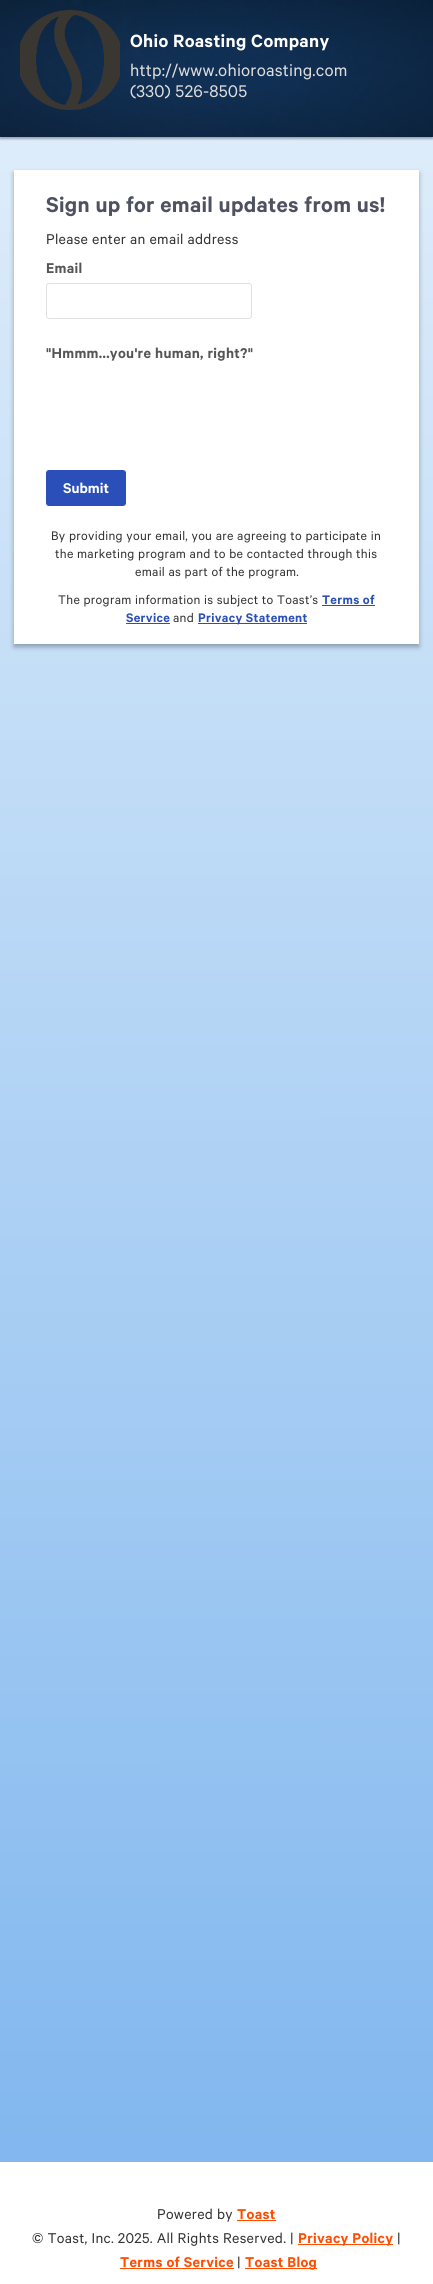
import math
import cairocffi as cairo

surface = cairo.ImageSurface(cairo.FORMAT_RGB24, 433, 2284)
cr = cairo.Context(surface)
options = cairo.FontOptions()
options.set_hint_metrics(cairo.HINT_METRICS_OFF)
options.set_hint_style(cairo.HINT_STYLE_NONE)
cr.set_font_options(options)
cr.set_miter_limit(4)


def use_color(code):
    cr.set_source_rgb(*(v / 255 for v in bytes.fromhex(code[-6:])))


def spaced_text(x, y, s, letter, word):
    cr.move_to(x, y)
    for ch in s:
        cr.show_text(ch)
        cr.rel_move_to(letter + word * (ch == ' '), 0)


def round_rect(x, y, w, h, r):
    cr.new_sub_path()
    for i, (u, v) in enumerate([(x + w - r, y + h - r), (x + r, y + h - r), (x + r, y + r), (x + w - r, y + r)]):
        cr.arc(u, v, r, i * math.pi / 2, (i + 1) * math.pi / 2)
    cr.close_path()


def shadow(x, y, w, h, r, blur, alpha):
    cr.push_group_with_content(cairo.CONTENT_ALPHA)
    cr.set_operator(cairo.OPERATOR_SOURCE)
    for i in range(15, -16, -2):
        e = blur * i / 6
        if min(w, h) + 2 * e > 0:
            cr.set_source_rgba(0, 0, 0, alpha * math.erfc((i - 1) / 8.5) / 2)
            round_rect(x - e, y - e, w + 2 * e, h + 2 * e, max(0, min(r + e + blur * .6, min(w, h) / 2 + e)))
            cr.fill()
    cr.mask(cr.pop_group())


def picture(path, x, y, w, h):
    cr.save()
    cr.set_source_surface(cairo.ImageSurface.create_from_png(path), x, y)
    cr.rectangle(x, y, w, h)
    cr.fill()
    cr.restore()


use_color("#ffffff")
cr.paint()
gradient = cairo.LinearGradient(216, 0, 217, 2284)
gradient.add_color_stop_rgba(0, 0.89, 0.941, 0.984, 1)
gradient.add_color_stop_rgba(1, 0.486, 0.706, 0.933, 1)
cr.set_source(gradient)
cr.rectangle(0, 137, 433, 2025)
cr.fill()
use_color("#000000")
shadow(0, 2, 433, 137, 0, 1, 0.3)
picture("img1.png", 0, 0, 433, 137)
picture("img2.png", 20, 10, 100, 100)
cr.select_font_face("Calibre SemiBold")
cr.set_font_size(20)
use_color("#ffffff")
spaced_text(130, 47, "Ohio Roasting Company", 0.3, 0)
cr.select_font_face("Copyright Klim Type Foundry")
cr.set_font_size(19)
use_color("#dddddd")
spaced_text(130, 76, "http://www.ohioroasting.com", 0.2, 0)
spaced_text(130, 97, "(330) 526-8505", 0.2, 0)
use_color("#000000")
shadow(14, 173, 405, 474, 0, 2.5, 0.3)
use_color("#ffffff")
cr.rectangle(14, 170, 405, 474)
cr.fill()
cr.select_font_face("Calibre SemiBold")
cr.set_font_size(24)
use_color("#4e5260")
spaced_text(46, 212, "Sign up for email updates from us!", 0.3, 0)
cr.select_font_face("Copyright Klim Type Foundry")
cr.set_font_size(16)
use_color("#333333")
spaced_text(46, 244, "Please enter an email address", 0.3, 0)
cr.select_font_face("Calibre SemiBold")
use_color("#555555")
spaced_text(46, 273, "Email", 0.3, 0)
round_rect(46.5, 283.5, 205, 35, 2.5)
use_color("#e0e0e0")
cr.set_line_width(1)
cr.stroke()
use_color("#555555")
spaced_text(46, 358, "\"Hmmm...you're human, right?\"", 0.3, 0)
use_color("#2b4fb9")
round_rect(46.5, 470.5, 79, 35, 2.5)
cr.fill_preserve()
cr.stroke()
use_color("#ffffff")
cr.move_to(63, 493)
cr.show_text("Submit")
cr.select_font_face("Copyright Klim Type Foundry")
cr.set_font_size(14)
use_color("#333333")
spaced_text(51, 540, "By providing your email, you are agreeing to participate in", 0.3, 0)
spaced_text(55, 558, "the marketing program and to be contacted through this", 0.3, 0)
spaced_text(135, 576, "email as part of the program.", 0.3, 0)
spaced_text(58, 604, "The program information is subject to Toast’s", 0.3, 0)
cr.select_font_face("Calibre SemiBold")
use_color("#2b4fb9")
spaced_text(322, 604, "Terms of", 0.3, 0)
cr.rectangle(322, 605, 53, 1)
cr.fill()
spaced_text(126, 622, "Service", 0.3, 0)
cr.rectangle(126, 623, 44, 1)
cr.fill()
cr.select_font_face("Copyright Klim Type Foundry")
use_color("#333333")
spaced_text(173, 622, "and", 0.3, 0)
use_color("#2b4fb9")
cr.rectangle(198, 623, 109, 1)
cr.fill()
cr.select_font_face("Calibre SemiBold")
spaced_text(198, 622, "Privacy Statement", 0.3, 0)
cr.select_font_face("Copyright Klim Type Foundry")
cr.set_font_size(16)
use_color("#333333")
spaced_text(157, 2219, "Powered by", 0.3, 0)
cr.select_font_face("Calibre SemiBold")
use_color("#ff4c00")
spaced_text(237, 2219, "Toast", 0.3, 0)
cr.rectangle(237, 2220, 39, 1)
cr.fill()
cr.select_font_face("Copyright Klim Type Foundry")
use_color("#333333")
spaced_text(32, 2243, "© Toast, Inc. 2025. All Rights Reserved. |", 0.3, 0)
use_color("#ff4c00")
cr.rectangle(298, 2244, 95, 1)
cr.fill()
cr.select_font_face("Calibre SemiBold")
spaced_text(298, 2243, "Privacy Policy", 0.3, 0)
cr.select_font_face("Copyright Klim Type Foundry")
use_color("#333333")
spaced_text(397, 2243, "|", 0.3, 0)
cr.select_font_face("Calibre SemiBold")
use_color("#ff4c00")
spaced_text(120, 2267, "Terms of Service", 0.3, 0)
cr.rectangle(120, 2268, 114, 1)
cr.fill()
cr.select_font_face("Copyright Klim Type Foundry")
use_color("#333333")
spaced_text(237, 2267, "|", 0.3, 0)
use_color("#ff4c00")
cr.rectangle(245, 2268, 72, 1)
cr.fill()
cr.select_font_face("Calibre SemiBold")
spaced_text(245, 2267, "Toast Blog", 0.3, 0)
surface.write_to_png("result.png")
